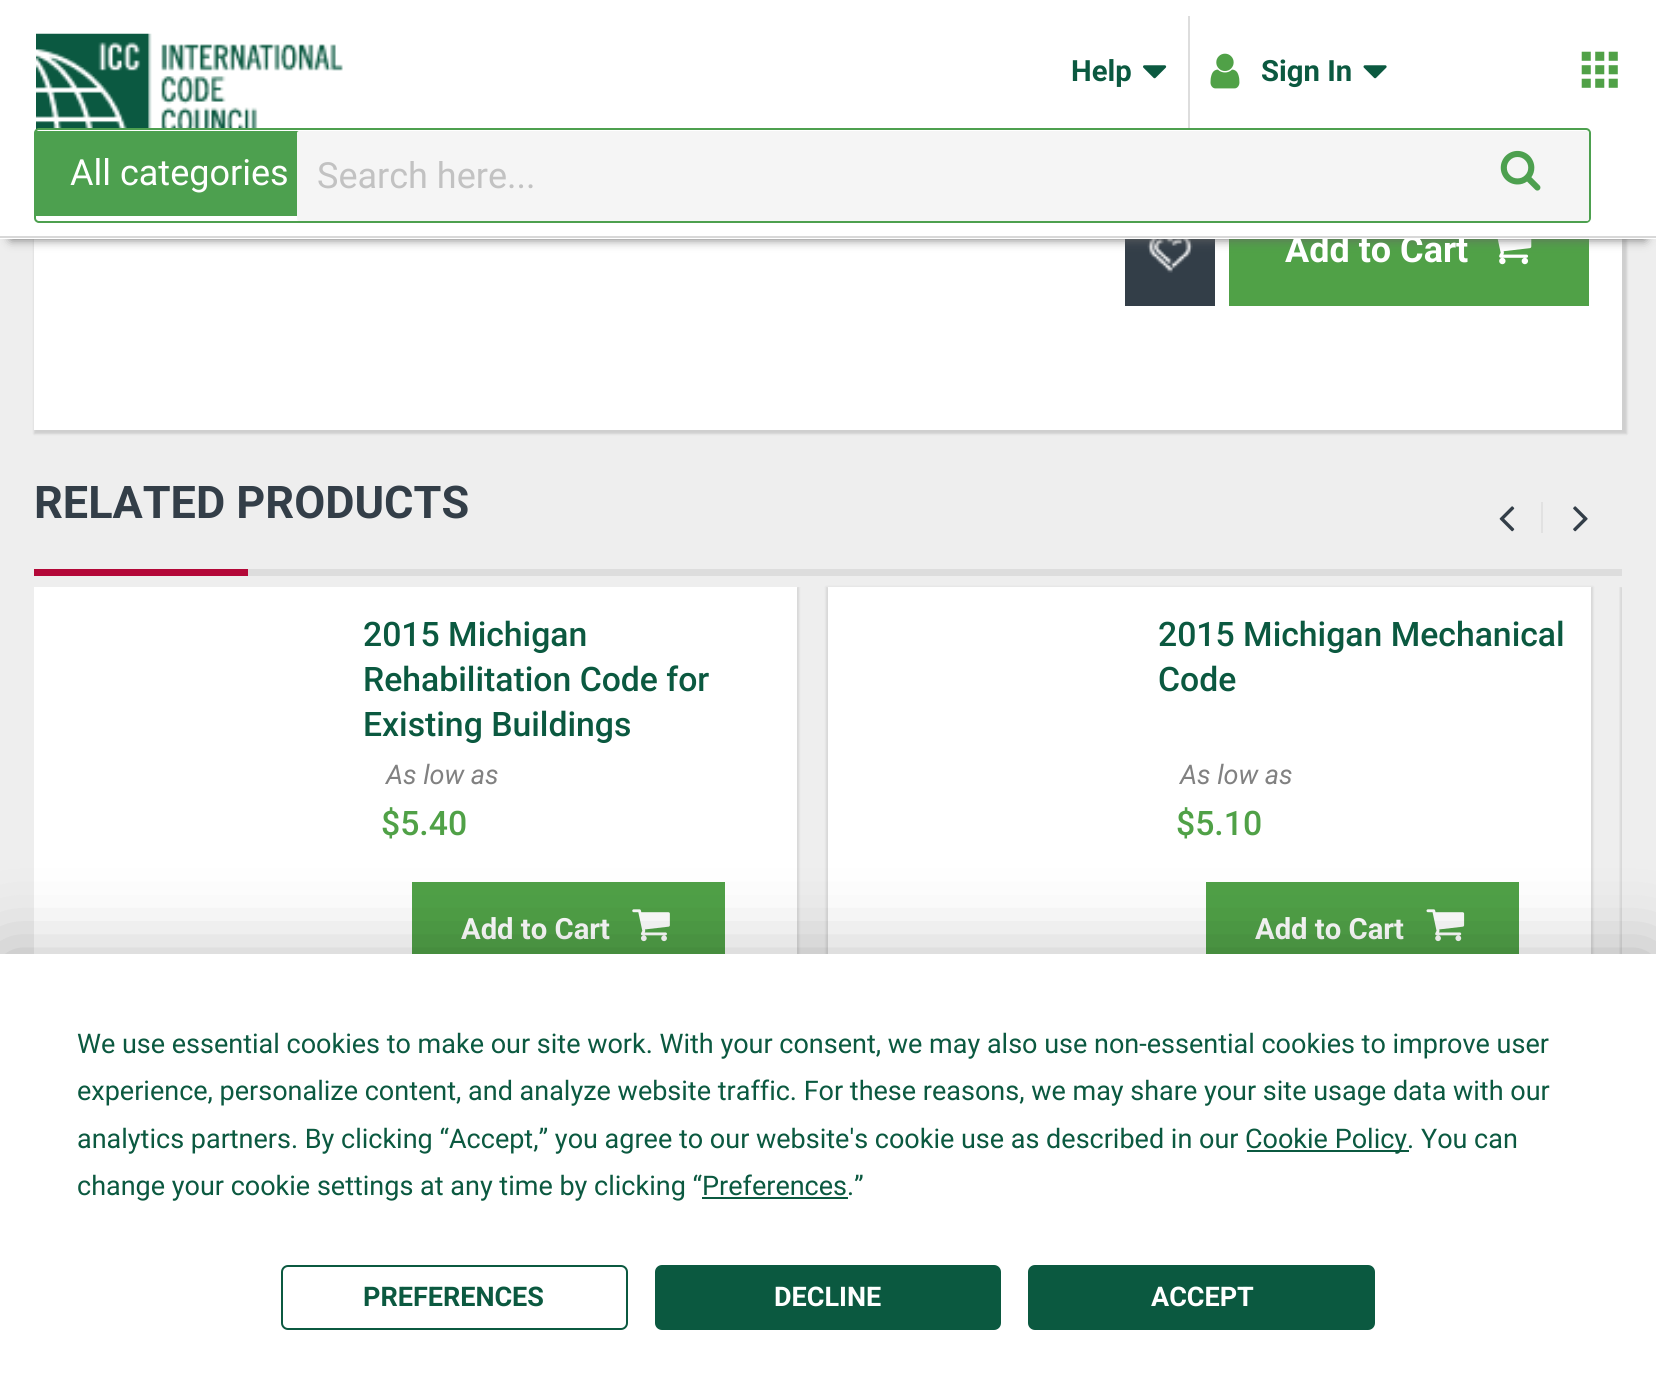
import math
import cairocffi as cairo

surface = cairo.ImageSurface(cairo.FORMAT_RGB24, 1656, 1396)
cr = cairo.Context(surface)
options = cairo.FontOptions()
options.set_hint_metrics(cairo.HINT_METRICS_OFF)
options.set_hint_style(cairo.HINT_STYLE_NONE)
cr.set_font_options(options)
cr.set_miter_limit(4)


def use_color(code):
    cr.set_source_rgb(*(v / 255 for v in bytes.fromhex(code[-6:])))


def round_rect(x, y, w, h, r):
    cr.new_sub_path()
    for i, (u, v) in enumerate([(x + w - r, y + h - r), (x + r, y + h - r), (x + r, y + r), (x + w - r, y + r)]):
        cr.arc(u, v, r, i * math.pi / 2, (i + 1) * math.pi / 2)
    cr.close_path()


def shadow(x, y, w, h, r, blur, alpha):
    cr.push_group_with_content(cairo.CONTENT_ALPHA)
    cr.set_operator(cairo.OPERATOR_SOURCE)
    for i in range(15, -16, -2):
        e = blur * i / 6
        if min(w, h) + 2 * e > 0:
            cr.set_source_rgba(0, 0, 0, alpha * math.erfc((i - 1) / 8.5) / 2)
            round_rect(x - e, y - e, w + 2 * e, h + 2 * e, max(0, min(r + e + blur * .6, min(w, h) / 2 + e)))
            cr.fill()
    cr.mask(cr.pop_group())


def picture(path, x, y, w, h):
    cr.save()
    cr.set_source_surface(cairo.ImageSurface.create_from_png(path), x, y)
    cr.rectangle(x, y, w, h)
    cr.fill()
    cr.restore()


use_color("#eeeeee")
cr.paint()
use_color("#000000")
shadow(34, -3, 1593, 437, 0, 1, 0.13)
use_color("#ffffff")
cr.rectangle(34, 239, 1588, 191)
cr.fill()
use_color("#333e48")
cr.rectangle(1125, 239, 90, 67)
cr.fill()
picture("img7.png", 1147, 239, 46, 34)
use_color("#50a147")
cr.rectangle(1229, 239, 360, 67)
cr.fill()
picture("img8.png", 1497, 239, 35, 26)
use_color("#666666")
shadow(11, 23, 1634, 216, 0, 5.5, 1)
use_color("#ffffff")
cr.rectangle(0, 0, 1656, 239)
cr.fill()
cr.select_font_face("Roboto", cairo.FONT_SLANT_NORMAL, cairo.FONT_WEIGHT_BOLD)
cr.set_font_size(36)
cr.move_to(1285, 262)
cr.show_text("Add to Cart")
use_color("#d8d8d8")
cr.rectangle(0, 236, 1656, 2)
cr.fill()
picture("img1.png", 36, 33, 307, 96)
cr.set_font_size(29.25)
use_color("#0b5940")
cr.move_to(1071, 81)
cr.show_text("Help")
picture("img2.png", 1143, 65, 24, 14)
use_color("#dddddd")
cr.rectangle(1188, 16, 2, 112)
cr.fill()
picture("img3.png", 1210, 53, 30, 36)
use_color("#0b5940")
cr.move_to(1261, 81)
cr.show_text("Sign In")
picture("img4.png", 1363, 65, 24, 14)
picture("img5.png", 1581, 51, 37, 37)
use_color("#ffffff")
round_rect(35, 129, 1555, 93, 4)
cr.fill_preserve()
use_color("#4da04f")
cr.stroke()
cr.rectangle(36, 131, 5, 85)
cr.fill()
cr.new_path()
cr.move_to(41, 131)
cr.line_to(704, 131)
cr.curve_to(708, 131, 711, 134, 711, 138)
cr.line_to(711, 209)
cr.curve_to(711, 213, 708, 216, 704, 216)
cr.line_to(41, 216)
cr.curve_to(38, 216, 36, 214, 36, 211)
cr.line_to(36, 136)
cr.curve_to(36, 133, 38, 131, 41, 131)
cr.close_path()
cr.fill()
cr.select_font_face("Roboto")
cr.set_font_size(36)
use_color("#ffffff")
cr.move_to(70, 185)
cr.show_text("All categories")
use_color("#f5f5f5")
round_rect(297, 131, 1292, 90, 2)
cr.fill()
use_color("#c2c2c2")
cr.move_to(317, 188)
cr.show_text("Search here...")
picture("img6.png", 1500, 150, 41, 41)
use_color("#dddddd")
cr.rectangle(248, 569, 1374, 7)
cr.fill()
cr.select_font_face("Roboto", cairo.FONT_SLANT_NORMAL, cairo.FONT_WEIGHT_BOLD)
cr.set_font_size(45)
use_color("#333e48")
cr.move_to(34, 518)
cr.show_text("RELATED PRODUCTS")
use_color("#b30838")
cr.rectangle(34, 569, 214, 7)
cr.fill()
picture("img9.png", 1499, 506, 16, 26)
use_color("#e1e1e1")
cr.rectangle(1541, 502, 2, 31)
cr.fill()
picture("img10.png", 1573, 506, 15, 26)
cr.save()
cr.rectangle(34, 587, 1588, 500)
cr.clip()
use_color("#000000")
shadow(32, 587, 767, 504, 0, 1, 0.1)
cr.restore()
use_color("#ffffff")
cr.rectangle(34, 587, 763, 367)
cr.fill()
cr.select_font_face("Roboto Medium")
cr.set_font_size(33.75)
use_color("#0b5940")
cr.move_to(363, 646)
cr.show_text("2015 Michigan")
cr.move_to(363, 691)
cr.show_text("Rehabilitation Code for")
cr.move_to(363, 736)
cr.show_text("Existing Buildings")
cr.select_font_face("Roboto", cairo.FONT_SLANT_ITALIC)
cr.set_font_size(27)
use_color("#818181")
cr.move_to(386, 784)
cr.show_text("As low as")
cr.select_font_face("Roboto Medium")
cr.set_font_size(33.75)
use_color("#50a147")
cr.move_to(381, 835)
cr.show_text("$5.40")
cr.rectangle(412, 882, 313, 72)
cr.fill()
cr.select_font_face("Roboto", cairo.FONT_SLANT_NORMAL, cairo.FONT_WEIGHT_BOLD)
cr.set_font_size(29.25)
use_color("#ffffff")
cr.move_to(461, 939)
cr.show_text("Add to Cart")
picture("img11.png", 632, 909, 38, 33)
use_color("#000000")
shadow(826, 587, 767, 504, 0, 1, 0.1)
use_color("#ffffff")
cr.rectangle(828, 587, 763, 367)
cr.fill()
cr.select_font_face("Roboto Medium")
cr.set_font_size(33.75)
use_color("#0b5940")
cr.move_to(1158, 646)
cr.show_text("2015 Michigan Mechanical")
cr.move_to(1158, 691)
cr.show_text("Code")
cr.select_font_face("Roboto", cairo.FONT_SLANT_ITALIC)
cr.set_font_size(27)
use_color("#818181")
cr.move_to(1180, 784)
cr.show_text("As low as")
cr.select_font_face("Roboto Medium")
cr.set_font_size(33.75)
use_color("#50a147")
cr.move_to(1176, 835)
cr.show_text("$5.10")
cr.rectangle(1206, 882, 313, 72)
cr.fill()
cr.select_font_face("Roboto", cairo.FONT_SLANT_NORMAL, cairo.FONT_WEIGHT_BOLD)
cr.set_font_size(29.25)
use_color("#ffffff")
cr.move_to(1255, 939)
cr.show_text("Add to Cart")
picture("img12.png", 1426, 909, 39, 33)
cr.save()
cr.rectangle(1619, 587, 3, 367)
cr.clip()
use_color("#000000")
shadow(1620, 587, 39, 387, 0, 1, 0.1)
cr.restore()
use_color("#000000")
shadow(0, 954, 1656, 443, 0, 39.5, 0.25)
use_color("#ffffff")
cr.rectangle(0, 954, 1656, 442)
cr.fill()
cr.select_font_face("Roboto")
cr.set_font_size(27)
use_color("#0b5940")
cr.move_to(77, 1053)
cr.show_text("We use essential cookies to make our site work. With your consent, we may also use non-essential cookies to improve user")
cr.move_to(77, 1100)
cr.show_text("experience, personalize content, and analyze website traffic. For these reasons, we may share your site usage data with our")
cr.move_to(77, 1148)
cr.show_text("analytics partners. By clicking “Accept,” you agree to our website's cookie use as described in our")
cr.rectangle(1247, 1150, 162, 2)
cr.fill()
cr.move_to(1245, 1148)
cr.show_text("Cookie Policy. You can")
cr.move_to(77, 1195)
cr.show_text("change your cookie settings at any time by clicking “Preferences.”")
cr.rectangle(702, 1197, 146, 2)
cr.fill()
round_rect(282, 1266, 345, 63, 6)
cr.stroke()
cr.select_font_face("Roboto", cairo.FONT_SLANT_NORMAL, cairo.FONT_WEIGHT_BOLD)
cr.move_to(363, 1306)
cr.show_text("PREFERENCES")
round_rect(656, 1266, 344, 63, 6)
cr.fill_preserve()
cr.stroke()
use_color("#ffffff")
cr.move_to(774, 1306)
cr.show_text("DECLINE")
use_color("#0b5940")
round_rect(1029, 1266, 345, 63, 6)
cr.fill_preserve()
cr.stroke()
use_color("#ffffff")
cr.move_to(1151, 1306)
cr.show_text("ACCEPT")
surface.write_to_png("result.png")
